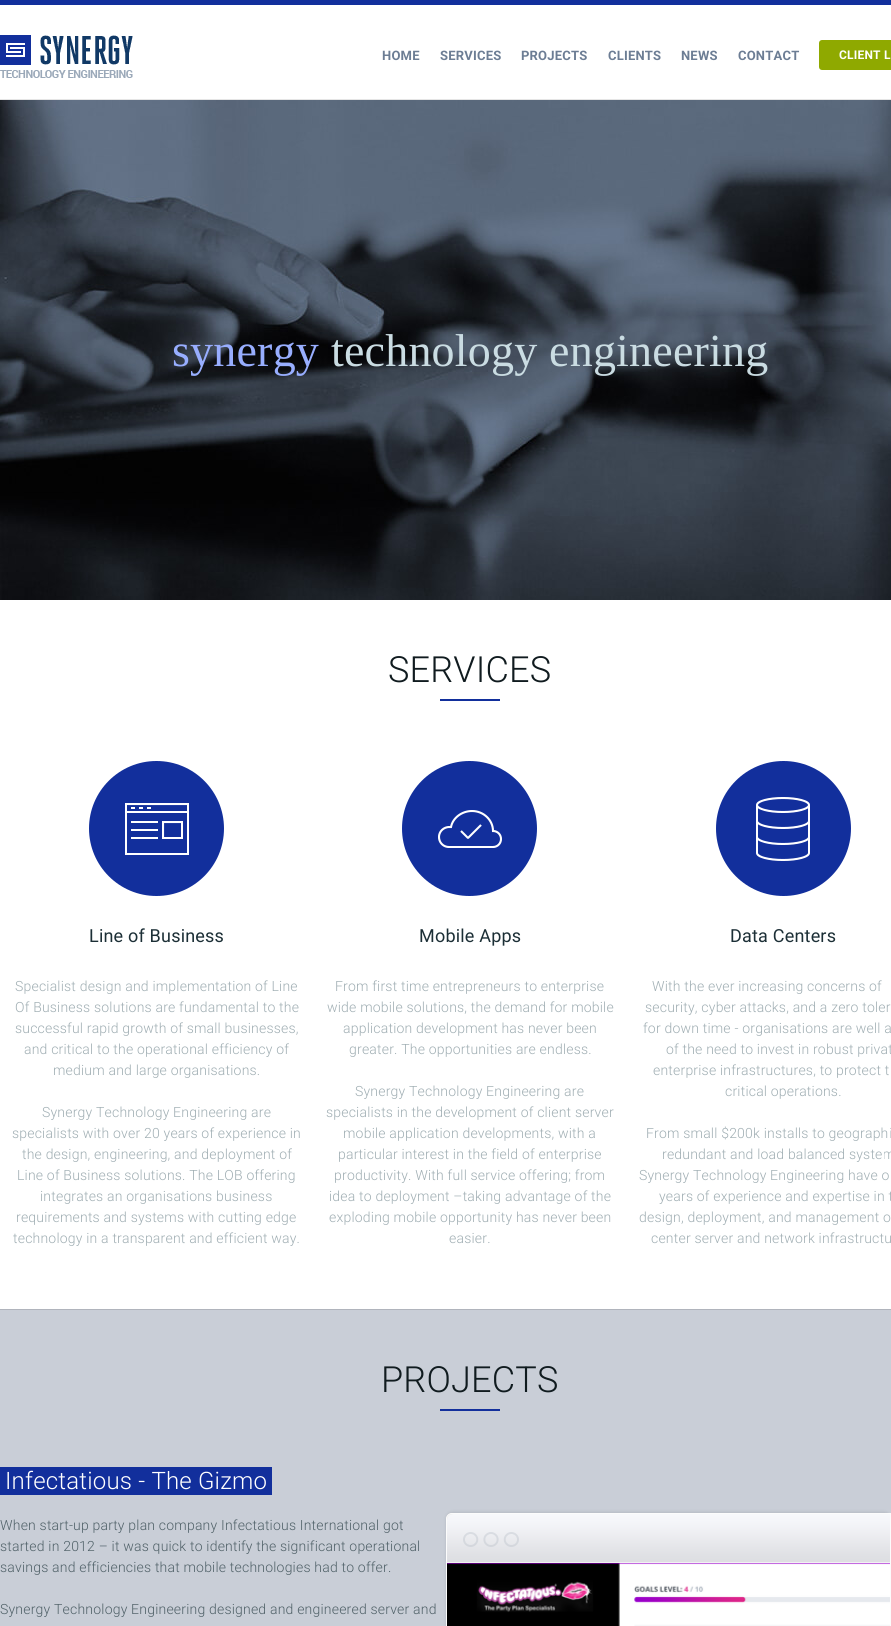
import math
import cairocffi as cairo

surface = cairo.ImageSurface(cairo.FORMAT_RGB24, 891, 1626)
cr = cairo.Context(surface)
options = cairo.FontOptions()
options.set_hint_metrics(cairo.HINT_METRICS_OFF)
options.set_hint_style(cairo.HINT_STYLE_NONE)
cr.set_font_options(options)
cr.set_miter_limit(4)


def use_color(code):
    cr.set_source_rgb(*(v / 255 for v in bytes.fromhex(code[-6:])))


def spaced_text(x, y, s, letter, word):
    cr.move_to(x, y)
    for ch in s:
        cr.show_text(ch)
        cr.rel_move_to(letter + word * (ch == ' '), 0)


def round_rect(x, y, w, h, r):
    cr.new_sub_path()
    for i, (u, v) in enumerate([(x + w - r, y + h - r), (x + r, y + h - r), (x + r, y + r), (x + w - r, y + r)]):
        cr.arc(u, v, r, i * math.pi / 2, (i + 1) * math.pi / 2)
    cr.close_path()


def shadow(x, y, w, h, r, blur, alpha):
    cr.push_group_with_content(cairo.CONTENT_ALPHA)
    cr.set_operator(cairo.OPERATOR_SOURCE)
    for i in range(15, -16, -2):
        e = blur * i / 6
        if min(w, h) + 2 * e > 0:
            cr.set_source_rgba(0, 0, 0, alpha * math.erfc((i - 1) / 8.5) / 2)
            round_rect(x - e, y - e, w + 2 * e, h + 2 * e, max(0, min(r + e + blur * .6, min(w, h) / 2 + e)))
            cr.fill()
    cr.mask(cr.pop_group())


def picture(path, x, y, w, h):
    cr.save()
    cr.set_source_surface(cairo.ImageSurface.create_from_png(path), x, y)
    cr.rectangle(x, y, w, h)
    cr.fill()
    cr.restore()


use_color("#ffffff")
cr.paint()
use_color("#122f9c")
cr.rectangle(0, 0, 891, 5)
cr.fill()
use_color("#e5e5e5")
cr.rectangle(0, 99, 891, 1)
cr.fill()
picture("img1.png", 0, 35, 133, 43)
cr.select_font_face("Roboto", cairo.FONT_SLANT_NORMAL, cairo.FONT_WEIGHT_BOLD)
cr.set_font_size(13)
use_color("#6c7d94")
spaced_text(382, 60, "HOME", 0.2, 0)
spaced_text(440, 60, "SERVICES", 0.2, 0)
spaced_text(521, 60, "PROJECTS", 0.2, 0)
spaced_text(608, 60, "CLIENTS", 0.2, 0)
spaced_text(681, 60, "NEWS", 0.2, 0)
spaced_text(738, 60, "CONTACT", 0.2, 0)
use_color("#8fa900")
round_rect(819, 40, 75, 30, 3)
cr.fill()
cr.set_font_size(12)
use_color("#ffffff")
spaced_text(839, 59, "CLIENT L", 0.2, 0)
picture("img2.png", 0, 100, 891, 500)
cr.select_font_face("Liberation Serif")
cr.set_font_size(46)
use_color("#98aeff")
spaced_text(172, 366, "synergy", 0.2, 0)
use_color("#cadce2")
spaced_text(331, 366, "technology engineering", 0.2, 0)
use_color("#b0b4bc")
cr.rectangle(0, 1309, 891, 1)
cr.fill()
cr.select_font_face("Roboto Light")
cr.set_font_size(36)
use_color("#101b1f")
spaced_text(388, 682, "SERVICES", 0.2, 0)
use_color("#122f9c")
cr.rectangle(440, 699, 60, 2)
cr.fill()
cr.arc(156.5, 828.5, 67.5, 0, 2 * math.pi)
cr.fill()
picture("img3.png", 125, 803, 64, 52)
cr.select_font_face("Roboto")
cr.set_font_size(18)
use_color("#1c2f36")
spaced_text(89, 942, "Line of Business", 0.2, 0)
cr.select_font_face("Roboto Light")
cr.set_font_size(14)
use_color("#a0aeb3")
spaced_text(15, 991, "Specialist design and implementation of Line", 0.2, 0)
spaced_text(15, 1012, "Of Business solutions are fundamental to the", 0.2, 0)
spaced_text(15, 1033, "successful rapid growth of small businesses,", 0.2, 0)
spaced_text(24, 1054, "and critical to the operational efficiency of", 0.2, 0)
spaced_text(53, 1075, "medium and large organisations.", 0.2, 0)
spaced_text(42, 1117, "Synergy Technology Engineering are", 0.2, 0)
spaced_text(12, 1138, "specialists with over 20 years of experience in", 0.2, 0)
spaced_text(22, 1159, "the design, engineering, and deployment of", 0.2, 0)
spaced_text(17, 1180, "Line of Business solutions. The LOB offering", 0.2, 0)
spaced_text(40, 1201, "integrates an organisations business", 0.2, 0)
spaced_text(16, 1222, "requirements and systems with cutting edge", 0.2, 0)
spaced_text(13, 1243, "technology in a transparent and efficient way.", 0.2, 0)
use_color("#122f9c")
cr.new_path()
cr.arc(469.5, 828.5, 67.5, 0, 2 * math.pi)
cr.fill()
picture("img4.png", 438, 810, 64, 38)
cr.select_font_face("Roboto")
cr.set_font_size(18)
use_color("#1c2f36")
spaced_text(419, 942, "Mobile Apps", 0.2, 0)
cr.select_font_face("Roboto Light")
cr.set_font_size(14)
use_color("#a0aeb3")
spaced_text(335, 991, "From first time entrepreneurs to enterprise", 0.2, 0)
spaced_text(327, 1012, "wide mobile solutions, the demand for mobile", 0.2, 0)
spaced_text(343, 1033, "application development has never been", 0.2, 0)
spaced_text(349, 1054, "greater. The opportunities are endless.", 0.2, 0)
spaced_text(355, 1096, "Synergy Technology Engineering are", 0.2, 0)
spaced_text(326, 1117, "specialists in the development of client server", 0.2, 0)
spaced_text(343, 1138, "mobile application developments, with a", 0.2, 0)
spaced_text(338, 1159, "particular interest in the field of enterprise", 0.2, 0)
spaced_text(334, 1180, "productivity. With full service offering; from", 0.2, 0)
spaced_text(329, 1201, "idea to deployment –taking advantage of the", 0.2, 0)
spaced_text(329, 1222, "exploding mobile opportunity has never been", 0.2, 0)
spaced_text(449, 1243, "easier.", 0.2, 0)
use_color("#122f9c")
cr.new_path()
cr.arc(783.5, 828.5, 67.5, 0, 2 * math.pi)
cr.fill()
picture("img5.png", 756, 797, 54, 64)
cr.select_font_face("Roboto")
cr.set_font_size(18)
use_color("#1c2f36")
spaced_text(730, 942, "Data Centers", 0.2, 0)
cr.select_font_face("Roboto Light")
cr.set_font_size(14)
use_color("#a0aeb3")
spaced_text(652, 991, "With the ever increasing concerns of", 0.2, 0)
spaced_text(645, 1012, "security, cyber attacks, and a zero toler", 0.2, 0)
spaced_text(643, 1033, "for down time - organisations are well a", 0.2, 0)
spaced_text(666, 1054, "of the need to invest in robust privat", 0.2, 0)
spaced_text(653, 1075, "enterprise infrastructures, to protect t", 0.2, 0)
spaced_text(725, 1096, "critical operations.", 0.2, 0)
spaced_text(646, 1138, "From small $200k installs to geographi", 0.2, 0)
spaced_text(662, 1159, "redundant and load balanced system", 0.2, 0)
spaced_text(639, 1180, "Synergy Technology Engineering have o", 0.2, 0)
spaced_text(659, 1201, "years of experience and expertise in t", 0.2, 0)
spaced_text(639, 1222, "design, deployment, and management o", 0.2, 0)
spaced_text(651, 1243, "center server and network infrastructu", 0.2, 0)
use_color("#c9ced7")
cr.rectangle(0, 1310, 891, 316)
cr.fill()
cr.set_font_size(36)
use_color("#101b1f")
spaced_text(381, 1392, "PROJECTS", 0.2, 0)
use_color("#122f9c")
cr.rectangle(440, 1409, 60, 2)
cr.fill()
cr.rectangle(0, 1467, 272, 28)
cr.fill()
cr.set_font_size(24)
use_color("#ffffff")
spaced_text(5, 1489, "Infectatious - The Gizmo", 0.2, 0)
cr.set_font_size(14)
use_color("#506168")
spaced_text(0, 1530, "When start-up party plan company Infectatious International got", 0.2, 0)
spaced_text(0, 1551, "started in 2012 – it was quick to identify the significant operational", 0.2, 0)
spaced_text(0, 1572, "savings and efficiencies that mobile technologies had to offer.", 0.2, 0)
spaced_text(0, 1614, "Synergy Technology Engineering designed and engineered server and", 0.2, 0)
use_color("#000000")
shadow(446, 1512, 445, 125, 6, 1.5, 0.1)
use_color("#ececec")
cr.new_path()
cr.move_to(452, 1513)
cr.line_to(891, 1513)
cr.line_to(891, 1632)
cr.line_to(446, 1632)
cr.line_to(446, 1519)
cr.curve_to(446, 1515.5, 448.5, 1513, 452, 1513)
cr.close_path()
cr.fill()
use_color("#fcfcfc")
cr.set_fill_rule(cairo.FILL_RULE_EVEN_ODD)
cr.new_path()
cr.move_to(452, 1513)
cr.line_to(891, 1513)
cr.line_to(891, 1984)
cr.line_to(446, 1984)
cr.line_to(446, 1519)
cr.curve_to(446, 1516, 449, 1513, 452, 1513)
cr.close_path()
cr.move_to(452, 1514)
cr.line_to(890, 1514)
cr.line_to(890, 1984)
cr.line_to(447, 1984)
cr.line_to(447, 1519)
cr.curve_to(447, 1516, 449, 1514, 452, 1514)
cr.close_path()
cr.fill()
picture("img6.png", 447, 1514, 443, 48)
use_color("#f2f2f2")
cr.rectangle(447, 1562, 443, 1)
cr.fill()
picture("img7.png", 463, 1532, 56, 15)
picture("img8.png", 447, 1563, 443, 63)
surface.write_to_png("result.png")
